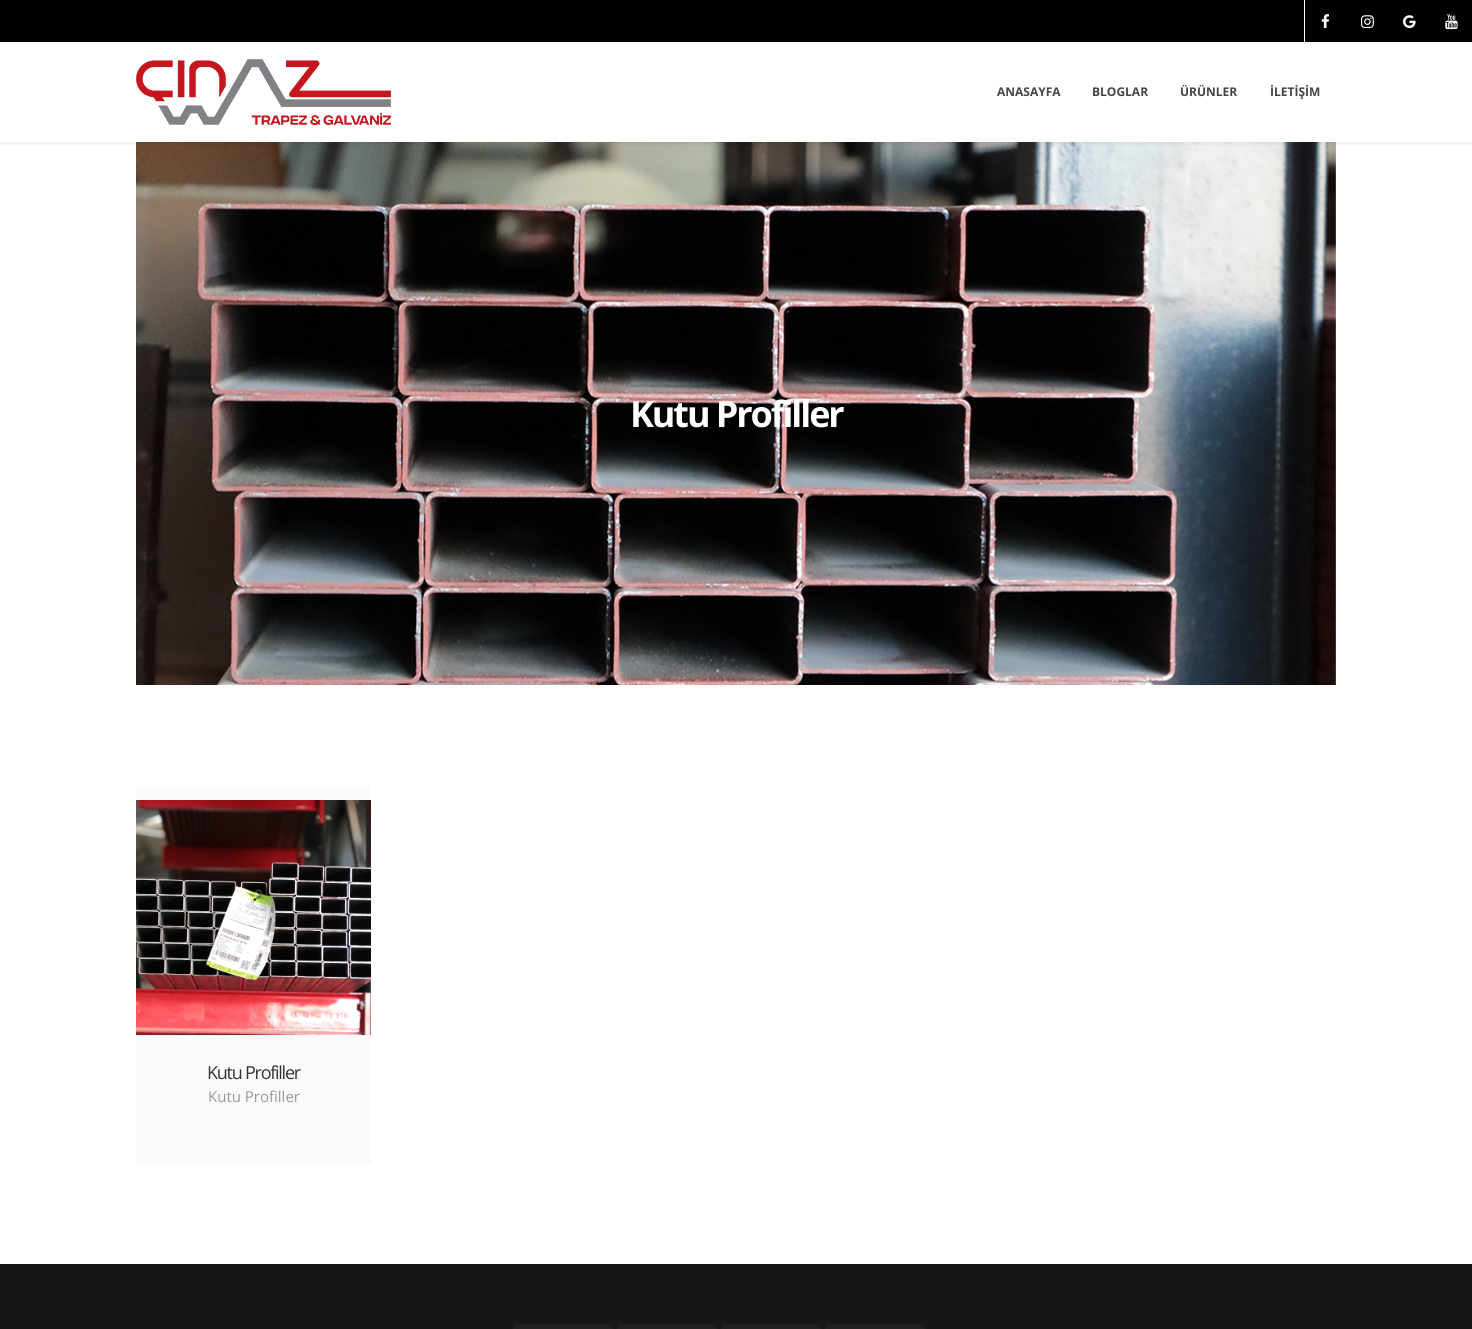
import math
import cairocffi as cairo

surface = cairo.ImageSurface(cairo.FORMAT_RGB24, 1472, 1329)
cr = cairo.Context(surface)
options = cairo.FontOptions()
options.set_hint_metrics(cairo.HINT_METRICS_OFF)
options.set_hint_style(cairo.HINT_STYLE_NONE)
cr.set_font_options(options)
cr.set_miter_limit(4)


def use_color(code):
    cr.set_source_rgb(*(v / 255 for v in bytes.fromhex(code[-6:])))


def spaced_text(x, y, s, letter, word):
    cr.move_to(x, y)
    for ch in s:
        cr.show_text(ch)
        cr.rel_move_to(letter + word * (ch == ' '), 0)


def round_rect(x, y, w, h, r):
    cr.new_sub_path()
    for i, (u, v) in enumerate([(x + w - r, y + h - r), (x + r, y + h - r), (x + r, y + r), (x + w - r, y + r)]):
        cr.arc(u, v, r, i * math.pi / 2, (i + 1) * math.pi / 2)
    cr.close_path()


def shadow(x, y, w, h, r, blur, alpha):
    cr.push_group_with_content(cairo.CONTENT_ALPHA)
    cr.set_operator(cairo.OPERATOR_SOURCE)
    for i in range(15, -16, -2):
        e = blur * i / 6
        if min(w, h) + 2 * e > 0:
            cr.set_source_rgba(0, 0, 0, alpha * math.erfc((i - 1) / 8.5) / 2)
            round_rect(x - e, y - e, w + 2 * e, h + 2 * e, max(0, min(r + e + blur * .6, min(w, h) / 2 + e)))
            cr.fill()
    cr.mask(cr.pop_group())


def picture(path, x, y, w, h):
    cr.save()
    cr.set_source_surface(cairo.ImageSurface.create_from_png(path), x, y)
    cr.rectangle(x, y, w, h)
    cr.fill()
    cr.restore()


use_color("#ffffff")
cr.paint()
picture("img6.png", 136, 142, 1200, 543)
cr.save()
cr.rectangle(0, 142, 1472, 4)
cr.clip()
use_color("#000000")
shadow(-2, 41, 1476, 104, 0, 2, 0.06)
cr.restore()
use_color("#000000")
cr.rectangle(0, 0, 1472, 42)
cr.fill()
use_color("#ffffff")
cr.rectangle(1304, 0, 1, 42)
cr.fill()
picture("img1.png", 1321, 14, 9, 15)
picture("img2.png", 1361, 15, 13, 14)
picture("img3.png", 1403, 15, 13, 14)
picture("img4.png", 1445, 14, 13, 16)
picture("img5.png", 136, 59, 255, 66)
cr.select_font_face("Open Sans", cairo.FONT_SLANT_NORMAL, cairo.FONT_WEIGHT_BOLD)
cr.set_font_size(12)
use_color("#454545")
cr.move_to(997, 96)
cr.show_text("ANASAYFA")
cr.move_to(1092, 96)
cr.show_text("BLOGLAR")
cr.move_to(1180, 96)
cr.show_text("ÜRÜNLER")
cr.move_to(1270, 96)
cr.show_text("İLETİŞİM")
cr.set_font_size(36)
use_color("#ffffff")
spaced_text(630, 427, "Kutu Profiller", -2.1, 0)
use_color("#fafafa")
cr.rectangle(136, 785, 235, 379)
cr.fill()
picture("img7.png", 136, 800, 235, 235)
cr.select_font_face("Open Sans")
cr.set_font_size(18)
use_color("#333333")
spaced_text(207, 1079, "Kutu Profiller", -1.25, 0)
cr.set_font_size(15)
use_color("#999999")
cr.move_to(208, 1102)
cr.show_text("Kutu Profiller")
use_color("#171717")
cr.rectangle(0, 1264, 1472, 65)
cr.fill()
use_color("#212121")
round_rect(513, 1324, 100, 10, 5)
cr.fill()
round_rect(617, 1324, 100, 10, 5)
cr.fill()
round_rect(721, 1324, 100, 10, 5)
cr.fill()
round_rect(825, 1324, 100, 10, 5)
cr.fill()
surface.write_to_png("result.png")
